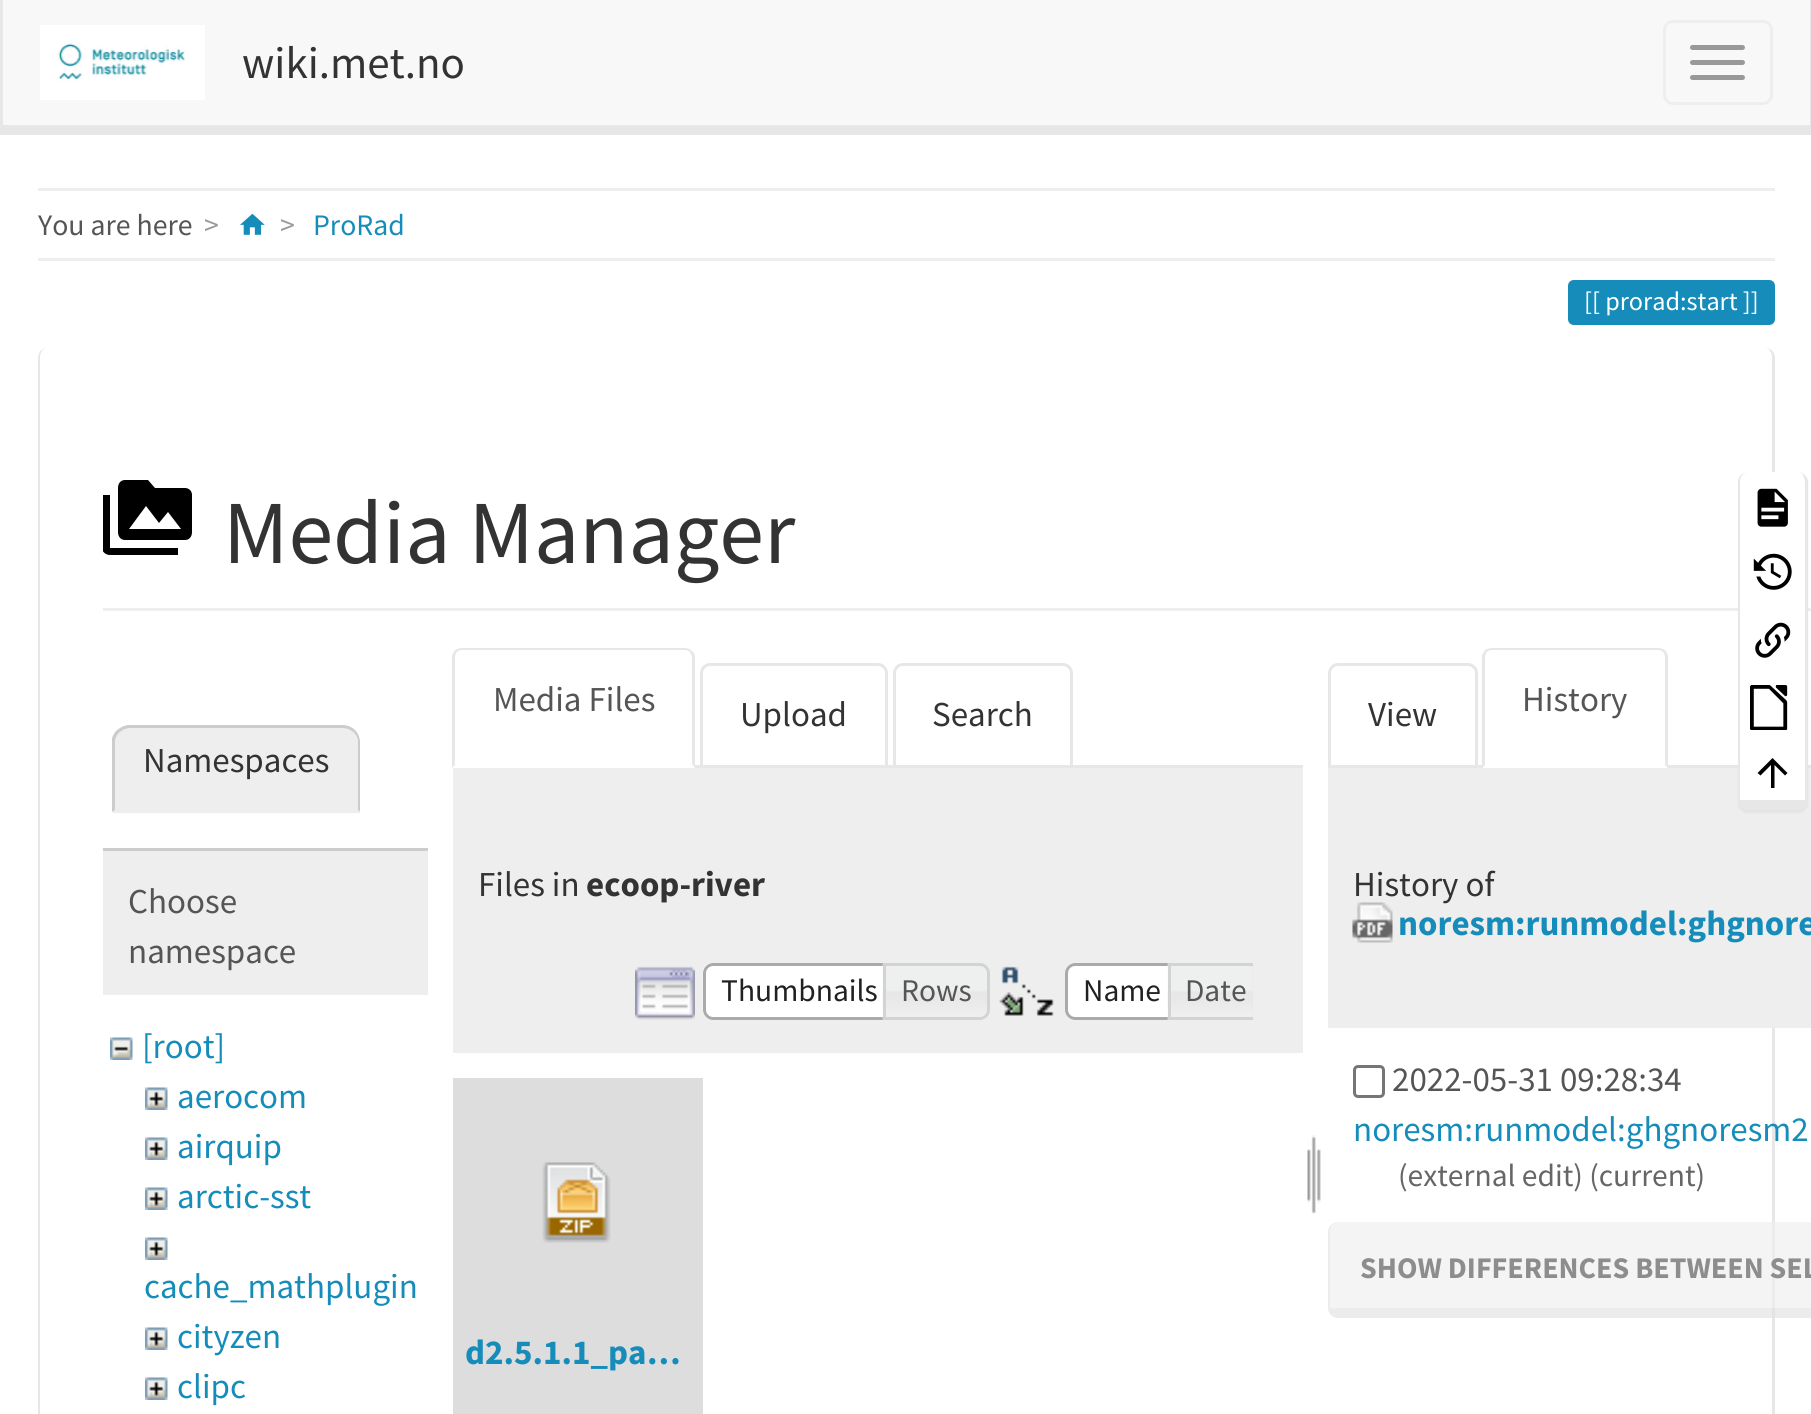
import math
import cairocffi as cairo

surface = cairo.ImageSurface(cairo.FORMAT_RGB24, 1811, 1414)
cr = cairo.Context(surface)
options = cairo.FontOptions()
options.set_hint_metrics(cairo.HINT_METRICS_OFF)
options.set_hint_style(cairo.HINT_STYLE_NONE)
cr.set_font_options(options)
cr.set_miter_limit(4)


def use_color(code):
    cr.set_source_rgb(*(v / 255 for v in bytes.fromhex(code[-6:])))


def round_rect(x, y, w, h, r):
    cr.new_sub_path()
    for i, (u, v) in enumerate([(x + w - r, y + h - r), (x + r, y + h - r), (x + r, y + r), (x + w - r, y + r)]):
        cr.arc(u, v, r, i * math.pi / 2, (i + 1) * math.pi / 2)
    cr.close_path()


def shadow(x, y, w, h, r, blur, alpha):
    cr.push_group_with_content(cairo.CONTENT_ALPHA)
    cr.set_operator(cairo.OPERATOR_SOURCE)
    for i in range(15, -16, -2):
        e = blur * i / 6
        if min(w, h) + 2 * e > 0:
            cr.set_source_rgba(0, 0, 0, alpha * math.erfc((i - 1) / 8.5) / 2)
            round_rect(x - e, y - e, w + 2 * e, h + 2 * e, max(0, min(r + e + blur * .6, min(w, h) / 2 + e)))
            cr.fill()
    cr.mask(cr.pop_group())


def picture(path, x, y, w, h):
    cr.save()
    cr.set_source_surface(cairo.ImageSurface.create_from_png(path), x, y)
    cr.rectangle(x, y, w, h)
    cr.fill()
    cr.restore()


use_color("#ffffff")
cr.paint()
use_color("#f8f8f8")
cr.rectangle(3, 0, 1807, 125)
cr.fill()
use_color("#e7e7e7")
cr.rectangle(1810, 0, 1, 125)
cr.fill()
cr.rectangle(3, 125, 1808, 10)
cr.fill()
cr.rectangle(0, 0, 3, 135)
cr.fill()
picture("img1.png", 40, 25, 165, 75)
cr.select_font_face("Source Sans Pro")
cr.set_font_size(45)
use_color("#333333")
cr.move_to(242, 78)
cr.show_text("wiki.met.no")
round_rect(1664.5, 21.5, 107, 82, 8.5)
use_color("#eeeeee")
cr.set_line_width(3)
cr.stroke()
use_color("#999999")
round_rect(1690, 45, 55, 5, 2.5)
cr.fill()
round_rect(1690, 60, 55, 5, 2.5)
cr.fill()
round_rect(1690, 75, 55, 5, 2.5)
cr.fill()
use_color("#eeeeee")
cr.rectangle(38, 188, 1737, 3)
cr.fill()
cr.set_font_size(29.75)
use_color("#555555")
cr.move_to(38, 235)
cr.show_text("You are here")
use_color("#999999")
cr.move_to(204, 235)
cr.show_text(">")
picture("img2.png", 240, 213, 25, 22)
cr.move_to(280, 235)
cr.show_text(">")
use_color("#158cba")
cr.move_to(313, 235)
cr.show_text("ProRad")
use_color("#eeeeee")
cr.rectangle(38, 258, 1737, 3)
cr.fill()
use_color("#158cba")
cr.new_path()
cr.move_to(1574, 280)
cr.line_to(1605, 280)
cr.line_to(1605, 325)
cr.line_to(1574, 325)
cr.curve_to(1570.5, 325, 1568, 322.5, 1568, 319)
cr.line_to(1568, 286)
cr.curve_to(1568, 282.5, 1570.5, 280, 1574, 280)
cr.close_path()
cr.fill()
cr.rectangle(1605, 280, 133, 45)
cr.fill()
cr.new_path()
cr.move_to(1738, 280)
cr.line_to(1769, 280)
cr.curve_to(1772.5, 280, 1775, 282.5, 1775, 286)
cr.line_to(1775, 319)
cr.curve_to(1775, 322.5, 1772.5, 325, 1769, 325)
cr.line_to(1738, 325)
cr.close_path()
cr.fill()
cr.set_font_size(26.25)
use_color("#ffffff")
cr.move_to(1584, 310)
cr.show_text("[[ prorad:start ]]")
use_color("#e7e7e7")
cr.set_fill_rule(cairo.FILL_RULE_EVEN_ODD)
cr.new_path()
cr.move_to(48, 348)
cr.line_to(1765, 348)
cr.curve_to(1771, 348, 1775, 352, 1775, 358)
cr.line_to(1775, 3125)
cr.curve_to(1775, 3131, 1771, 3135, 1765, 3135)
cr.line_to(48, 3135)
cr.curve_to(42, 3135, 38, 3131, 38, 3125)
cr.line_to(38, 358)
cr.curve_to(38, 352, 42, 348, 48, 348)
cr.close_path()
cr.move_to(48, 348)
cr.line_to(1765, 348)
cr.curve_to(1769, 348, 1772, 352, 1772, 358)
cr.line_to(1772, 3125)
cr.line_to(40, 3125)
cr.line_to(40, 358)
cr.curve_to(40, 352, 43, 348, 48, 348)
cr.close_path()
cr.fill()
use_color("#eeeeee")
cr.rectangle(103, 608, 1708, 3)
cr.fill()
use_color("#e7e7e7")
cr.rectangle(1478, 765, 333, 3)
cr.fill()
use_color("#eeeeee")
cr.rectangle(1328, 768, 483, 260)
cr.fill()
use_color("#000000")
shadow(1738, 475, 70, 338, 10, 1, 0.05)
use_color("#ffffff")
cr.set_fill_rule(cairo.FILL_RULE_WINDING)
cr.new_path()
cr.move_to(1748, 472)
cr.line_to(1798, 472)
cr.curve_to(1802, 472, 1805, 477, 1805, 482)
cr.line_to(1805, 800)
cr.line_to(1740, 800)
cr.line_to(1740, 482)
cr.curve_to(1740, 477, 1743, 472, 1748, 472)
cr.close_path()
cr.fill()
use_color("#e7e7e7")
cr.set_fill_rule(cairo.FILL_RULE_EVEN_ODD)
cr.new_path()
cr.move_to(1748, 472)
cr.line_to(1798, 472)
cr.curve_to(1803, 472, 1808, 477, 1808, 482)
cr.line_to(1808, 800)
cr.curve_to(1808, 806, 1803, 810, 1798, 810)
cr.line_to(1748, 810)
cr.curve_to(1742, 810, 1738, 806, 1738, 800)
cr.line_to(1738, 482)
cr.curve_to(1738, 477, 1742, 472, 1748, 472)
cr.close_path()
cr.move_to(1748, 472)
cr.line_to(1798, 472)
cr.curve_to(1802, 472, 1805, 477, 1805, 482)
cr.line_to(1805, 800)
cr.line_to(1740, 800)
cr.line_to(1740, 482)
cr.curve_to(1740, 477, 1743, 472, 1748, 472)
cr.close_path()
cr.fill()
picture("img3.png", 1757, 488, 31, 39)
picture("img4.png", 1753, 553, 39, 37)
picture("img5.png", 1755, 622, 36, 36)
picture("img6.png", 1750, 685, 38, 45)
use_color("#000000")
cr.set_fill_rule(cairo.FILL_RULE_WINDING)
cr.new_path()
cr.move_to(1774.5, 788)
cr.line_to(1771, 788)
cr.line_to(1771, 765)
cr.line_to(1760.5, 775.5)
cr.line_to(1757.5, 773)
cr.line_to(1772.5, 758)
cr.line_to(1787.5, 773)
cr.line_to(1785, 775.5)
cr.line_to(1774.5, 765)
cr.close_path()
cr.fill()
cr.save()
cr.rectangle(103, 473, 90, 90)
cr.clip()
cr.new_path()
cr.move_to(129, 529)
cr.line_to(146, 506)
cr.line_to(159, 523)
cr.line_to(168, 512)
cr.line_to(181, 529)
cr.move_to(185, 488)
cr.line_to(155, 488)
cr.line_to(148, 480)
cr.line_to(125, 480)
cr.curve_to(121, 480, 118, 483, 118, 488)
cr.line_to(118, 532)
cr.curve_to(118, 537, 121, 540, 125, 540)
cr.line_to(185, 540)
cr.curve_to(189, 540, 192, 537, 192, 532)
cr.line_to(192, 495)
cr.curve_to(192, 491, 189, 488, 185, 488)
cr.move_to(110, 495)
cr.line_to(102, 495)
cr.line_to(102, 548)
cr.curve_to(102, 552, 106, 555, 110, 555)
cr.line_to(178, 555)
cr.line_to(178, 548)
cr.line_to(110, 548)
cr.close_path()
cr.fill()
cr.restore()
cr.set_font_size(90)
use_color("#333333")
cr.move_to(223, 563)
cr.show_text("Media Manager")
use_color("#eeeeee")
cr.new_path()
cr.move_to(131, 725)
cr.line_to(342, 725)
cr.curve_to(352, 725, 360, 733, 360, 743)
cr.line_to(360, 813)
cr.line_to(113, 813)
cr.line_to(113, 743)
cr.curve_to(113, 733, 121, 725, 131, 725)
cr.close_path()
cr.fill()
use_color("#cccccc")
cr.new_path()
cr.move_to(130, 725)
cr.curve_to(125, 725, 121, 727, 117, 730)
cr.line_to(120, 732)
cr.curve_to(122, 730, 126, 728, 130, 728)
cr.line_to(342, 728)
cr.curve_to(346, 728, 350, 729, 353, 732)
cr.line_to(355, 730)
cr.curve_to(352, 727, 347, 725, 342, 725)
cr.close_path()
cr.fill()
cr.new_path()
cr.move_to(360, 812)
cr.line_to(360, 742)
cr.curve_to(360, 738, 358, 733, 355, 730)
cr.line_to(353, 732)
cr.curve_to(356, 734, 358, 738, 358, 742)
cr.line_to(358, 810)
cr.close_path()
cr.fill()
use_color("#eeeeee")
cr.new_path()
cr.move_to(360, 812)
cr.line_to(113, 812)
cr.line_to(115, 810)
cr.line_to(358, 810)
cr.close_path()
cr.fill()
use_color("#cccccc")
cr.new_path()
cr.move_to(112, 738)
cr.curve_to(113, 735, 115, 732, 117, 730)
cr.line_to(120, 732)
cr.curve_to(117, 734, 115, 738, 115, 742)
cr.line_to(115, 810)
cr.line_to(112, 812)
cr.close_path()
cr.fill()
cr.set_font_size(35)
use_color("#333333")
cr.move_to(143, 772)
cr.show_text("Namespaces")
use_color("#eeeeee")
cr.rectangle(103, 851, 325, 144)
cr.fill()
use_color("#cccccc")
cr.rectangle(103, 848, 325, 3)
cr.fill()
use_color("#555555")
cr.move_to(128, 913)
cr.show_text("Choose")
cr.move_to(128, 963)
cr.show_text("namespace")
picture("img7.png", 110, 1037, 23, 23)
use_color("#158cba")
cr.move_to(142, 1058)
cr.show_text("[root]")
picture("img8.png", 145, 1087, 23, 23)
cr.move_to(177, 1108)
cr.show_text("aerocom")
picture("img8.png", 145, 1137, 23, 23)
cr.move_to(177, 1158)
cr.show_text("airquip")
picture("img8.png", 145, 1187, 23, 23)
cr.move_to(177, 1208)
cr.show_text("arctic-sst")
picture("img8.png", 145, 1237, 23, 23)
cr.move_to(144, 1298)
cr.show_text("cache_mathplugin")
picture("img8.png", 145, 1327, 23, 23)
cr.move_to(177, 1348)
cr.show_text("cityzen")
picture("img8.png", 145, 1377, 23, 23)
cr.move_to(177, 1398)
cr.show_text("clipc")
use_color("#e7e7e7")
cr.rectangle(695, 765, 608, 3)
cr.fill()
cr.new_path()
cr.move_to(462, 648)
cr.curve_to(460, 648, 457, 649, 455, 650)
cr.line_to(457, 652)
cr.curve_to(458, 651, 460, 650, 462, 650)
cr.line_to(685, 650)
cr.curve_to(687, 650, 689, 651, 690, 652)
cr.line_to(692, 651)
cr.curve_to(690, 649, 688, 648, 685, 648)
cr.close_path()
cr.fill()
cr.new_path()
cr.move_to(692, 651)
cr.curve_to(694, 652, 695, 655, 695, 658)
cr.line_to(695, 768)
cr.line_to(692, 764)
cr.line_to(692, 658)
cr.curve_to(692, 656, 691, 654, 690, 652)
cr.close_path()
cr.fill()
cr.new_path()
cr.move_to(452, 768)
cr.line_to(455, 765)
cr.line_to(455, 658)
cr.curve_to(455, 655, 456, 653, 457, 652)
cr.line_to(455, 650)
cr.curve_to(454, 652, 453, 653, 452, 655)
cr.close_path()
cr.fill()
use_color("#555555")
cr.move_to(493, 711)
cr.show_text("Media Files")
cr.new_path()
cr.move_to(710, 664.5)
cr.line_to(878, 664.5)
cr.curve_to(882.5, 664.5, 886.5, 668.5, 886.5, 673)
cr.line_to(886.5, 766.5)
cr.line_to(701.5, 766.5)
cr.line_to(701.5, 673)
cr.curve_to(701.5, 668.5, 705.5, 664.5, 710, 664.5)
cr.close_path()
use_color("#e7e7e7")
cr.stroke()
use_color("#333333")
cr.move_to(740, 726)
cr.show_text("Upload")
cr.new_path()
cr.move_to(903, 664.5)
cr.line_to(1063, 664.5)
cr.curve_to(1067.5, 664.5, 1071.5, 668.5, 1071.5, 673)
cr.line_to(1071.5, 766.5)
cr.line_to(894.5, 766.5)
cr.line_to(894.5, 673)
cr.curve_to(894.5, 668.5, 898.5, 664.5, 903, 664.5)
cr.close_path()
use_color("#e7e7e7")
cr.stroke()
use_color("#333333")
cr.move_to(932, 726)
cr.show_text("Search")
use_color("#eeeeee")
cr.rectangle(453, 768, 850, 285)
cr.fill()
use_color("#333333")
cr.move_to(478, 896)
cr.show_text("Files in")
cr.select_font_face("Source Sans Pro", cairo.FONT_SLANT_NORMAL, cairo.FONT_WEIGHT_BOLD)
cr.move_to(586, 896)
cr.show_text("ecoop-river")
picture("img9.png", 635, 966, 60, 54)
use_color("#ffffff")
cr.new_path()
cr.move_to(713, 963)
cr.line_to(895, 963)
cr.line_to(895, 1020)
cr.line_to(713, 1020)
cr.curve_to(707.5, 1020, 703, 1015.5, 703, 1010)
cr.line_to(703, 973)
cr.curve_to(703, 967.5, 707.5, 963, 713, 963)
cr.close_path()
cr.fill()
picture("img10.png", 702, 963, 9, 56)
cr.new_path()
cr.move_to(713, 964.5)
cr.line_to(893.5, 964.5)
cr.line_to(893.5, 1018.5)
cr.line_to(713, 1018.5)
cr.curve_to(708.5, 1018.5, 704.5, 1014.5, 704.5, 1010)
cr.line_to(704.5, 973)
cr.curve_to(704.5, 968.5, 708.5, 964.5, 713, 964.5)
cr.close_path()
use_color("#aaaaaa")
cr.stroke()
cr.select_font_face("Source Sans Pro")
cr.set_font_size(31.5)
use_color("#212121")
cr.move_to(721, 1001)
cr.show_text("Thumbnails")
picture("img11.png", 882, 963, 108, 57)
cr.new_path()
cr.move_to(884.5, 964.5)
cr.line_to(980, 964.5)
cr.curve_to(984.5, 964.5, 988.5, 968.5, 988.5, 973)
cr.line_to(988.5, 1010)
cr.curve_to(988.5, 1014.5, 984.5, 1018.5, 980, 1018.5)
cr.line_to(884.5, 1018.5)
cr.close_path()
use_color("#d3d3d3")
cr.stroke()
use_color("#555555")
cr.move_to(901, 1001)
cr.show_text("Rows")
picture("img12.png", 999, 966, 55, 50)
use_color("#ffffff")
cr.new_path()
cr.move_to(1075, 963)
cr.line_to(1180, 963)
cr.line_to(1180, 1020)
cr.line_to(1075, 1020)
cr.curve_to(1069.5, 1020, 1065, 1015.5, 1065, 1010)
cr.line_to(1065, 973)
cr.curve_to(1065, 967.5, 1069.5, 963, 1075, 963)
cr.close_path()
cr.fill()
picture("img13.png", 1065, 963, 8, 8)
cr.new_path()
cr.move_to(1075, 964.5)
cr.line_to(1178.5, 964.5)
cr.line_to(1178.5, 1018.5)
cr.line_to(1075, 1018.5)
cr.curve_to(1070.5, 1018.5, 1066.5, 1014.5, 1066.5, 1010)
cr.line_to(1066.5, 973)
cr.curve_to(1066.5, 968.5, 1070.5, 964.5, 1075, 964.5)
cr.close_path()
use_color("#aaaaaa")
cr.stroke()
use_color("#212121")
cr.move_to(1083, 1001)
cr.show_text("Name")
use_color("#e6e6e6")
cr.rectangle(1252, 966, 1, 51)
cr.fill()
picture("img14.png", 1167, 963, 86, 57)
cr.save()
cr.rectangle(615, 963, 638, 70)
cr.clip()
cr.new_path()
cr.move_to(1169.5, 964.5)
cr.line_to(1255, 964.5)
cr.curve_to(1259.5, 964.5, 1263.5, 968.5, 1263.5, 973)
cr.line_to(1263.5, 1010)
cr.curve_to(1263.5, 1014.5, 1259.5, 1018.5, 1255, 1018.5)
cr.line_to(1169.5, 1018.5)
cr.close_path()
use_color("#d3d3d3")
cr.stroke()
cr.restore()
use_color("#555555")
cr.move_to(1185, 1001)
cr.show_text("Date")
picture("img15.png", 1307, 1135, 14, 79)
use_color("#dddddd")
cr.rectangle(453, 1078, 250, 336)
cr.fill()
picture("img16.png", 542, 1162, 69, 81)
cr.select_font_face("Source Sans Pro", cairo.FONT_SLANT_NORMAL, cairo.FONT_WEIGHT_BOLD)
cr.set_font_size(35)
use_color("#158cba")
cr.move_to(465, 1364)
cr.show_text("d2.5.1.1_pa…")
cr.new_path()
cr.move_to(1338, 664.5)
cr.line_to(1468, 664.5)
cr.curve_to(1472.5, 664.5, 1476.5, 668.5, 1476.5, 673)
cr.line_to(1476.5, 766.5)
cr.line_to(1329.5, 766.5)
cr.line_to(1329.5, 673)
cr.curve_to(1329.5, 668.5, 1333.5, 664.5, 1338, 664.5)
cr.close_path()
use_color("#e7e7e7")
cr.stroke()
cr.select_font_face("Source Sans Pro")
use_color("#333333")
cr.move_to(1368, 726)
cr.show_text("View")
use_color("#ffffff")
cr.new_path()
cr.move_to(1493, 648)
cr.line_to(1658, 648)
cr.curve_to(1663.5, 648, 1668, 652.5, 1668, 658)
cr.line_to(1668, 768)
cr.line_to(1483, 768)
cr.line_to(1483, 658)
cr.curve_to(1483, 652.5, 1487.5, 648, 1493, 648)
cr.close_path()
cr.fill()
use_color("#e7e7e7")
cr.new_path()
cr.move_to(1492, 648)
cr.curve_to(1490, 648, 1487, 649, 1485, 650)
cr.line_to(1487, 652)
cr.curve_to(1488, 651, 1490, 650, 1492, 650)
cr.line_to(1658, 650)
cr.curve_to(1660, 650, 1662, 651, 1663, 652)
cr.line_to(1665, 650)
cr.curve_to(1663, 649, 1660, 648, 1658, 648)
cr.close_path()
cr.fill()
cr.new_path()
cr.move_to(1665, 650)
cr.curve_to(1666, 652, 1667, 653, 1668, 655)
cr.line_to(1668, 768)
cr.line_to(1665, 765)
cr.line_to(1665, 658)
cr.curve_to(1665, 655, 1664, 653, 1663, 652)
cr.close_path()
cr.fill()
cr.new_path()
cr.move_to(1482, 768)
cr.line_to(1485, 765)
cr.line_to(1485, 658)
cr.curve_to(1485, 655, 1486, 653, 1487, 652)
cr.line_to(1485, 650)
cr.curve_to(1484, 652, 1483, 653, 1482, 655)
cr.close_path()
cr.fill()
use_color("#555555")
cr.move_to(1522, 711)
cr.show_text("History")
use_color("#333333")
cr.move_to(1353, 896)
cr.show_text("History of")
picture("img17.png", 1352, 902, 41, 41)
cr.select_font_face("Source Sans Pro", cairo.FONT_SLANT_NORMAL, cairo.FONT_WEIGHT_BOLD)
use_color("#158cba")
cr.move_to(1398, 935)
cr.show_text("noresm:runmodel:ghgnore")
round_rect(1354.5, 1066.5, 29, 30, 3.5)
use_color("#767676")
cr.stroke()
cr.select_font_face("Source Sans Pro")
use_color("#555555")
cr.move_to(1392, 1091)
cr.show_text("2022-05-31 09:28:34")
use_color("#158cba")
cr.move_to(1353, 1141)
cr.show_text("noresm:runmodel:ghgnoresm2")
cr.set_font_size(31.5)
use_color("#666666")
cr.move_to(1398, 1186)
cr.show_text("(external edit) (current)")
cr.set_source_rgba(0.933, 0.933, 0.933, 0.65)
cr.new_path()
cr.move_to(1338, 1222)
cr.line_to(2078, 1222)
cr.curve_to(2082, 1222, 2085, 1227, 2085, 1232)
cr.line_to(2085, 1308)
cr.line_to(1330, 1308)
cr.line_to(1330, 1232)
cr.curve_to(1330, 1227, 1333, 1222, 1338, 1222)
cr.close_path()
cr.fill()
cr.set_source_rgba(0.886, 0.886, 0.886, 0.65)
cr.set_fill_rule(cairo.FILL_RULE_EVEN_ODD)
cr.new_path()
cr.move_to(1338, 1222)
cr.line_to(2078, 1222)
cr.curve_to(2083, 1222, 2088, 1227, 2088, 1232)
cr.line_to(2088, 1308)
cr.curve_to(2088, 1313, 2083, 1318, 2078, 1318)
cr.line_to(1338, 1318)
cr.curve_to(1332, 1318, 1328, 1313, 1328, 1308)
cr.line_to(1328, 1232)
cr.curve_to(1328, 1227, 1332, 1222, 1338, 1222)
cr.close_path()
cr.move_to(1338, 1222)
cr.line_to(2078, 1222)
cr.curve_to(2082, 1222, 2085, 1227, 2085, 1232)
cr.line_to(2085, 1308)
cr.line_to(1330, 1308)
cr.line_to(1330, 1232)
cr.curve_to(1330, 1227, 1333, 1222, 1338, 1222)
cr.close_path()
cr.fill()
cr.select_font_face("Source Sans Pro", cairo.FONT_SLANT_NORMAL, cairo.FONT_WEIGHT_BOLD)
cr.set_font_size(30)
use_color("#8d8d8d")
cr.move_to(1360, 1278)
cr.show_text("SHOW DIFFERENCES BETWEEN SEL")
surface.write_to_png("result.png")
